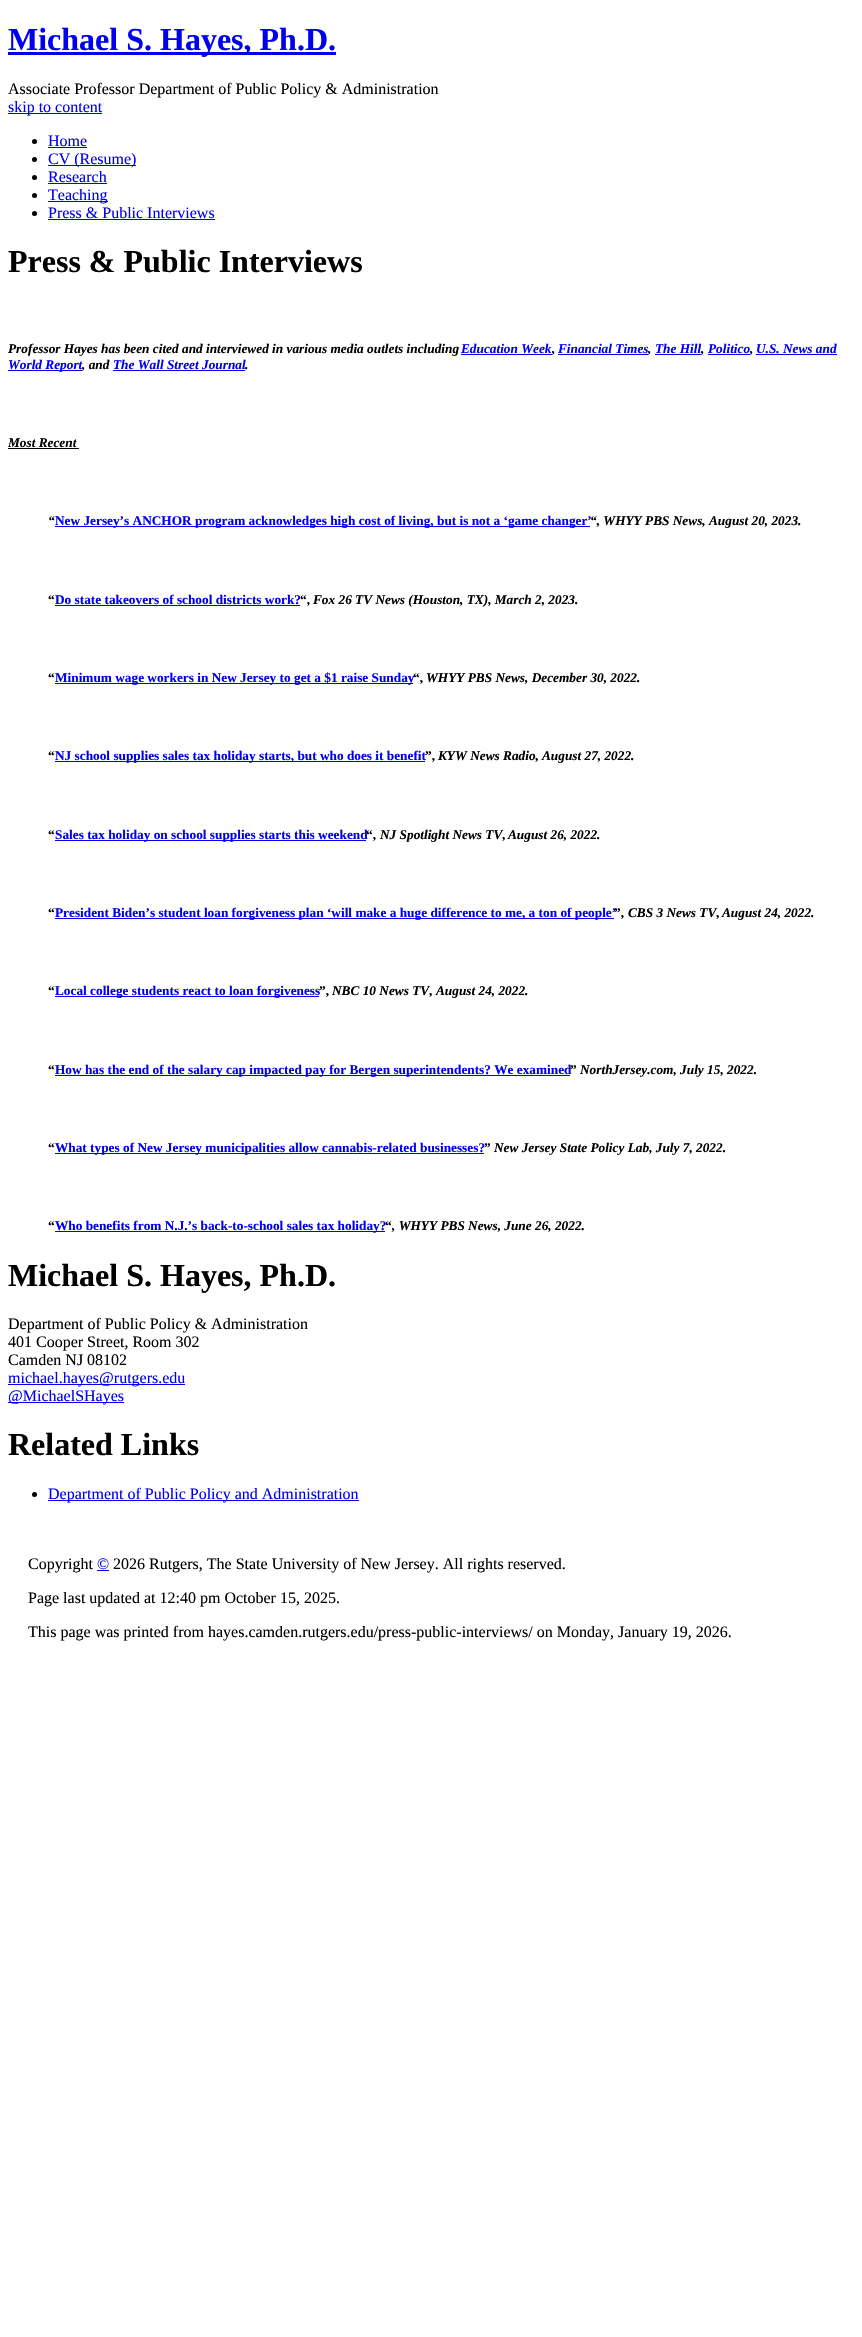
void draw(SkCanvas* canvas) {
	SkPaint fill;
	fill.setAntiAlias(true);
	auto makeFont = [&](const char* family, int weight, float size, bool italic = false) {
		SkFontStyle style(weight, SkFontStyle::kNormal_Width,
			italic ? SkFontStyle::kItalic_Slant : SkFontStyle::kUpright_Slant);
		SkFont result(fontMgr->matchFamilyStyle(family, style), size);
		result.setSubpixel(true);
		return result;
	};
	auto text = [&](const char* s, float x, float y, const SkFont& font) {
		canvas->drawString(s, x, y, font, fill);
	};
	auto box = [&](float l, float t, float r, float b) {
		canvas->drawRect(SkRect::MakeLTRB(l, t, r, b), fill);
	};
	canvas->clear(0xFFFFFFFF);
	fill.setColor(0xFF0000EE);
	box(8, 52, 336, 55);
	box(8, 113, 102, 114);
	fill.setColor(0xFF000000);
	canvas->drawCircle(34.5f, 141.5f, 2.5f, fill);
	fill.setColor(0xFF0000EE);
	box(48, 147, 87, 148);
	fill.setColor(0xFF000000);
	canvas->drawCircle(34.5f, 159.5f, 2.5f, fill);
	fill.setColor(0xFF0000EE);
	box(48, 165, 136, 166);
	fill.setColor(0xFF000000);
	canvas->drawCircle(34.5f, 177.5f, 2.5f, fill);
	fill.setColor(0xFF0000EE);
	box(48, 183, 107, 184);
	fill.setColor(0xFF000000);
	canvas->drawCircle(34.5f, 195.5f, 2.5f, fill);
	fill.setColor(0xFF0000EE);
	box(48, 201, 108, 202);
	fill.setColor(0xFF000000);
	canvas->drawCircle(34.5f, 213.5f, 2.5f, fill);
	fill.setColor(0xFF0000EE);
	box(48, 219, 215, 220);
	box(461, 354, 552, 355);
	box(558, 354, 648, 355);
	box(655, 354, 701, 355);
	box(708, 354, 750, 355);
	box(756, 354, 837, 355);
	box(8, 370, 82, 371);
	box(113, 370, 245, 371);
	fill.setColor(0xFF000000);
	box(8, 448, 79, 449);
	fill.setColor(0xFF0000EE);
	box(55, 526, 590, 527);
	box(55, 605, 300, 606);
	box(55, 683, 413, 684);
	box(55, 761, 425, 762);
	box(55, 840, 366, 841);
	box(55, 918, 614, 919);
	box(55, 996, 319, 997);
	box(55, 1075, 570, 1076);
	box(55, 1153, 484, 1154);
	box(55, 1231, 385, 1232);
	box(8, 1384, 185, 1385);
	box(8, 1402, 124, 1403);
	fill.setColor(0xFF000000);
	canvas->drawCircle(34.5f, 1494.5f, 2.5f, fill);
	fill.setColor(0xFF0000EE);
	box(48, 1500, 359, 1501);
	box(97, 1570, 109, 1571);
	auto font1 = makeFont("Liberation Serif", 700, 32);
	text("Michael S. Hayes, Ph.D.", 8, 50, font1);
	auto font2 = makeFont("Liberation Serif", 400, 16);
	fill.setColor(0xFF000000);
	text("Associate Professor Department of Public Policy & Administration", 8, 94, font2);
	fill.setColor(0xFF0000EE);
	text("skip to content", 8, 112, font2);
	text("Home", 48, 146, font2);
	text("CV (Resume)", 48, 164, font2);
	text("Research", 48, 182, font2);
	text("Teaching", 48, 200, font2);
	text("Press & Public Interviews", 48, 218, font2);
	fill.setColor(0xFF000000);
	text("Press & Public Interviews", 8, 272, font1);
	auto font3 = makeFont("Liberation Serif", 700, 13.3f, true);
	text("Professor Hayes has been cited and interviewed in various media outlets including", 8, 353, font3);
	fill.setColor(0xFF0000EE);
	text("Education Week", 461, 353, font3);
	fill.setColor(0xFF000000);
	text(",", 552, 353, font3);
	fill.setColor(0xFF0000EE);
	text("Financial Times", 558, 353, font3);
	fill.setColor(0xFF000000);
	text(",", 648, 353, font3);
	fill.setColor(0xFF0000EE);
	text("The Hill", 655, 353, font3);
	text("Politico", 708, 353, font3);
	text("U.S. News and", 756, 353, font3);
	fill.setColor(0xFF000000);
	text(",", 701, 353, font3);
	text(",", 750, 353, font3);
	fill.setColor(0xFF0000EE);
	text("World Report", 8, 369, font3);
	fill.setColor(0xFF000000);
	text(", and", 82, 369, font3);
	fill.setColor(0xFF0000EE);
	text("The Wall Street Journal", 113, 369, font3);
	fill.setColor(0xFF000000);
	text(".", 245, 369, font3);
	text("Most Recent", 8, 447, font3);
	text("“", 48, 525, font3);
	auto font4 = makeFont("Liberation Serif", 700, 13.3f);
	fill.setColor(0xFF0000EE);
	text("New Jersey’s ANCHOR program acknowledges high cost of living, but is not a ‘game changer’", 55, 525, font4);
	fill.setColor(0xFF000000);
	text("“, WHYY PBS News, August 20, 2023.", 590, 525, font3);
	text("“", 48, 604, font4);
	fill.setColor(0xFF0000EE);
	text("Do state takeovers of school districts work?", 55, 604, font4);
	fill.setColor(0xFF000000);
	text("“,", 300, 604, font4);
	text("Fox 26 TV News (Houston, TX), March 2, 2023.", 313, 604, font3);
	text("“", 48, 682, font4);
	fill.setColor(0xFF0000EE);
	text("Minimum wage workers in New Jersey to get a $1 raise Sunday", 55, 682, font4);
	fill.setColor(0xFF000000);
	text("“,", 413, 682, font4);
	text("WHYY PBS News, December 30, 2022.", 426, 682, font3);
	text("“", 48, 760, font4);
	fill.setColor(0xFF0000EE);
	text("NJ school supplies sales tax holiday starts, but who does it benefit", 55, 760, font4);
	fill.setColor(0xFF000000);
	text("”,", 425, 760, font4);
	text("KYW News Radio", 438, 760, font3);
	text(",", 535, 760, font4);
	text("August 27, 2022.", 542, 760, font3);
	text("“", 48, 839, font4);
	fill.setColor(0xFF0000EE);
	text("Sales tax holiday on school supplies starts this weekend", 55, 839, font4);
	fill.setColor(0xFF000000);
	text("“,", 366, 839, font4);
	text("NJ Spotlight News TV", 380, 839, font3);
	text("August 26, 2022.", 508, 839, font3);
	text(",", 502, 839, font4);
	text("“", 48, 917, font4);
	fill.setColor(0xFF0000EE);
	text("President Biden’s student loan forgiveness plan ‘will make a huge difference to me, a ton of people’", 55, 917, font4);
	fill.setColor(0xFF000000);
	text("”,", 614, 917, font4);
	text("CBS 3 News TV", 628, 917, font3);
	text("August 24, 2022.", 722, 917, font3);
	text(",", 716, 917, font4);
	text("“", 48, 995, font4);
	fill.setColor(0xFF0000EE);
	text("Local college students react to loan forgiveness", 55, 995, font4);
	fill.setColor(0xFF000000);
	text("”,", 319, 995, font4);
	text("NBC 10 News TV", 332, 995, font3);
	text("August 24, 2022.", 436, 995, font3);
	text(",", 429, 995, font4);
	text("“", 48, 1074, font4);
	fill.setColor(0xFF0000EE);
	text("How has the end of the salary cap impacted pay for Bergen superintendents? We examined", 55, 1074, font4);
	fill.setColor(0xFF000000);
	text("”", 570, 1074, font4);
	text("NorthJersey.com, July 15, 2022.", 580, 1074, font3);
	text("“", 48, 1152, font4);
	fill.setColor(0xFF0000EE);
	text("What types of New Jersey municipalities allow cannabis-related businesses?", 55, 1152, font4);
	fill.setColor(0xFF000000);
	text("”", 484, 1152, font4);
	text("New Jersey State Policy Lab, July 7, 2022.", 494, 1152, font3);
	text("“", 48, 1230, font4);
	fill.setColor(0xFF0000EE);
	text("Who benefits from N.J.’s back-to-school sales tax holiday?", 55, 1230, font4);
	fill.setColor(0xFF000000);
	text("“", 385, 1230, font4);
	text(", WHYY PBS News, June 26, 2022.", 392, 1230, font3);
	text("Michael S. Hayes, Ph.D.", 8, 1286, font1);
	text("Department of Public Policy & Administration", 8, 1329, font2);
	text("401 Cooper Street, Room 302", 8, 1347, font2);
	text("Camden NJ 08102", 8, 1365, font2);
	fill.setColor(0xFF0000EE);
	text("michael.hayes@rutgers.edu", 8, 1383, font2);
	text("@MichaelSHayes", 8, 1401, font2);
	fill.setColor(0xFF000000);
	text("Related Links", 8, 1455, font1);
	fill.setColor(0xFF0000EE);
	text("Department of Public Policy and Administration", 48, 1499, font2);
	fill.setColor(0xFF000000);
	text("Copyright", 28, 1569, font2);
	fill.setColor(0xFF0000EE);
	text("©", 97, 1569, font2);
	fill.setColor(0xFF000000);
	text("2026 Rutgers, The State University of New Jersey. All rights reserved.", 113, 1569, font2);
	text("Page last updated at 12:40 pm October 15, 2025.", 28, 1603, font2);
	text("This page was printed from hayes.camden.rutgers.edu/press-public-interviews/ on Monday, January 19, 2026.", 28, 1637, font2);
}
